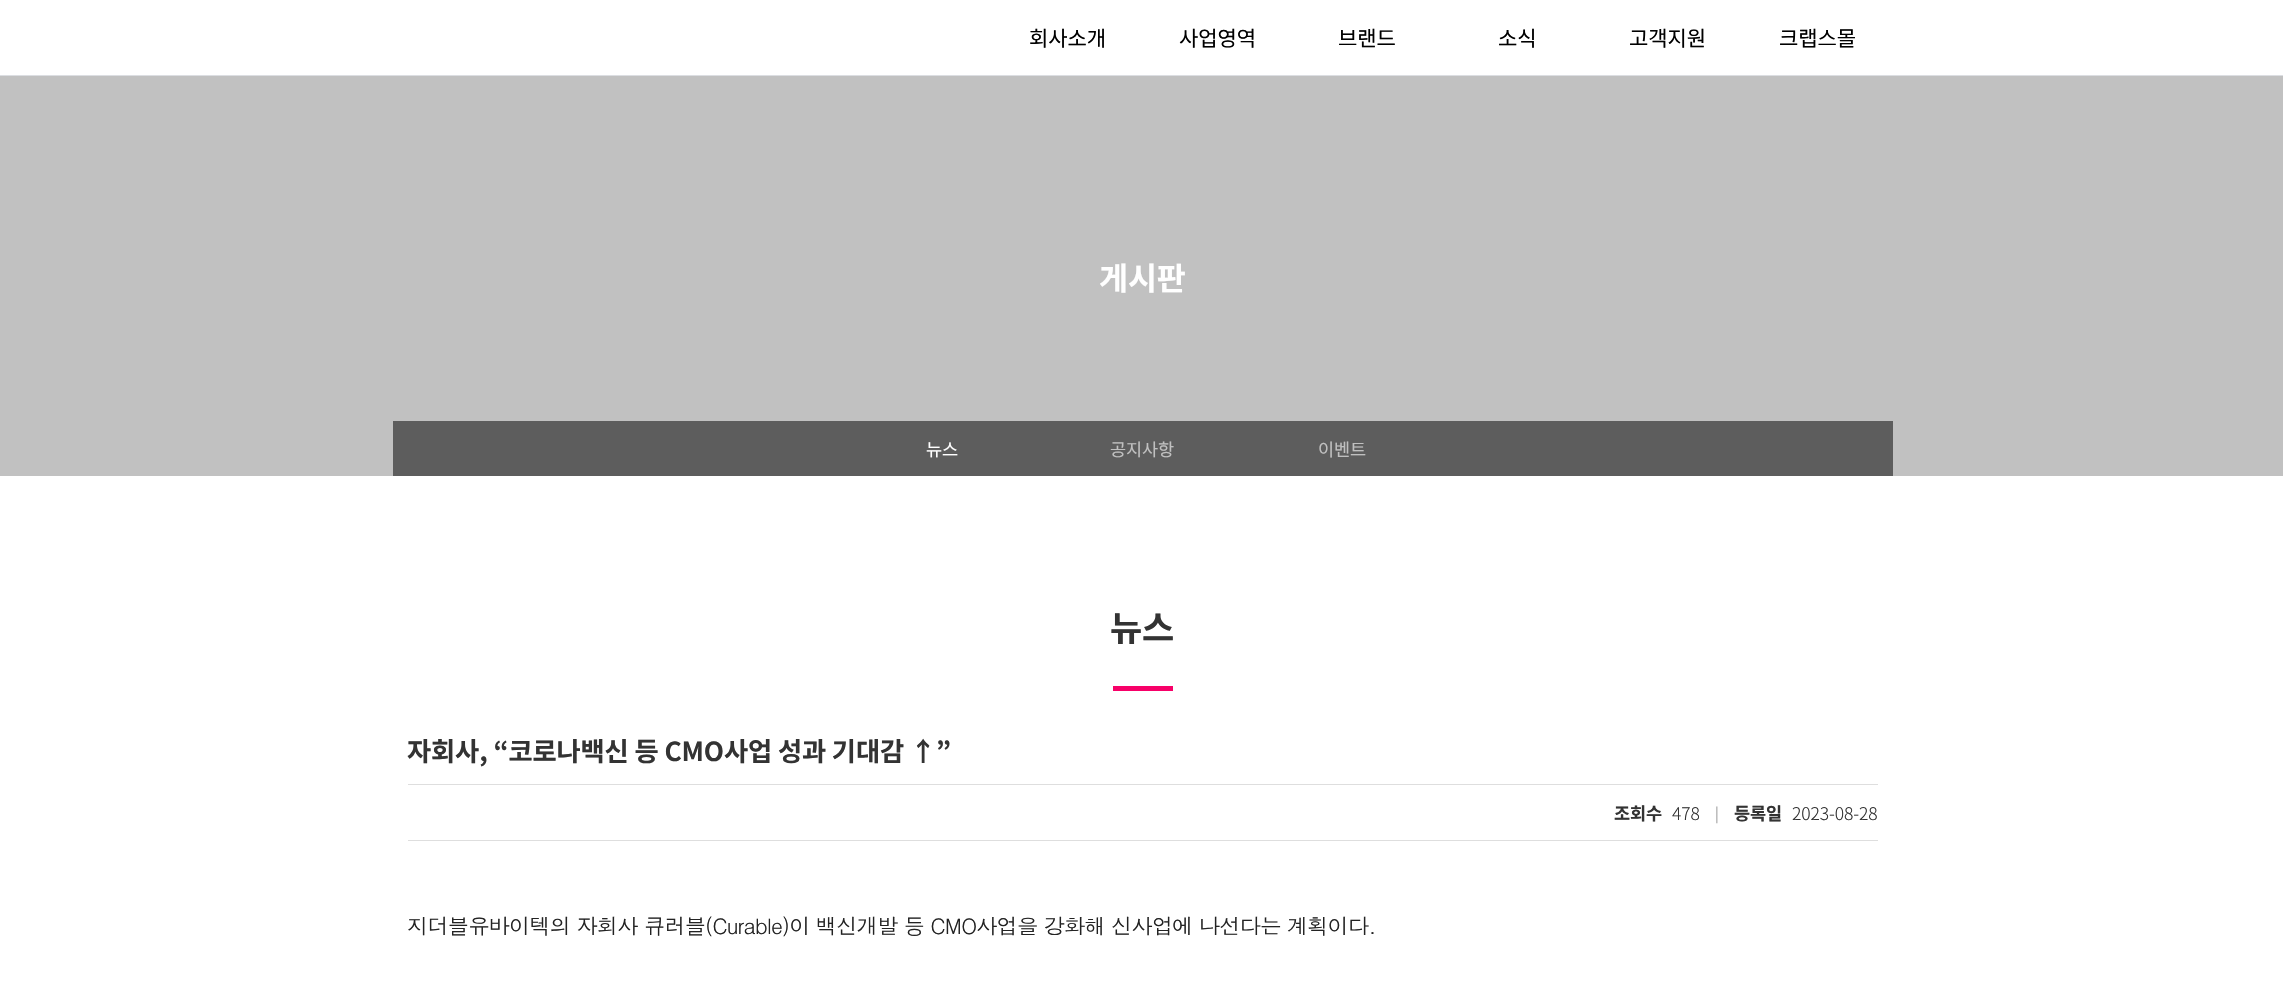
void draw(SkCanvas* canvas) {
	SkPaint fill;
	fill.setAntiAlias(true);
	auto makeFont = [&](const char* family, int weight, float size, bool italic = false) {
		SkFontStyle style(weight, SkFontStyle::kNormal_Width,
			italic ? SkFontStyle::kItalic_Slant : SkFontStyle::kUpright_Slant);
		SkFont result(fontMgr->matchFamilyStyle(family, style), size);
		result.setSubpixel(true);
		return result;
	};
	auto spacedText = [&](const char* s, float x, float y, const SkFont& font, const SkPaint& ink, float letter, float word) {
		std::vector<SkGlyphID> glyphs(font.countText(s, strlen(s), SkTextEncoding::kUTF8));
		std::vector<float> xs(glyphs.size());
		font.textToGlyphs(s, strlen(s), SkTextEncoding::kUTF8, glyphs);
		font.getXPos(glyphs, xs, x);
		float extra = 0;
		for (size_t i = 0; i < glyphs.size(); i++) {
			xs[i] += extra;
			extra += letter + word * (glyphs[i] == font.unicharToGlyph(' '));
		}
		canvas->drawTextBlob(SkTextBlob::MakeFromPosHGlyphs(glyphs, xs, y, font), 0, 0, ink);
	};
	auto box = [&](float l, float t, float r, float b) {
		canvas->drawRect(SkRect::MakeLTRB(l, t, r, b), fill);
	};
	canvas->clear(0xFFFFFFFF);
	fill.setColor(0xFFDCDEE2);
	box(0, 75, 2283, 76);
	fill.setColor(0xFFC1C1C1);
	box(0, 76, 2283, 476);
	fill.setColor(0xFF5D5D5D);
	box(393, 421, 1893, 476);
	fill.setColor(0xFFF70068);
	box(1113, 686, 1173, 691);
	fill.setColor(0xFFDEDEDE);
	box(408, 784, 1878, 785);
	box(408, 840, 1878, 841);
	auto font1 = makeFont("Noto Sans KR", 400, 21);
	fill.setColor(0xFF000000);
	spacedText("회사소개", 1029, 46, font1, fill, -0.1f, 0);
	spacedText("사업영역", 1179, 46, font1, fill, -0.1f, 0);
	spacedText("브랜드", 1338, 46, font1, fill, -0.1f, 0);
	spacedText("소식", 1498, 46, font1, fill, -0.1f, 0);
	spacedText("고객지원", 1629, 46, font1, fill, -0.1f, 0);
	spacedText("크랩스몰", 1779, 46, font1, fill, -0.1f, 0);
	auto font2 = makeFont("Noto Sans KR", 700, 31.5f);
	fill.setColor(0xFFFFFFFF);
	spacedText("게시판", 1099, 290, font2, fill, -0.1f, 0);
	auto font3 = makeFont("Noto Sans KR", 400, 17.5f);
	spacedText("뉴스", 926, 456, font3, fill, -0.1f, 0);
	fill.setColor(0xFFC0C0C0);
	spacedText("공지사항", 1110, 456, font3, fill, -0.1f, 0);
	spacedText("이벤트", 1318, 456, font3, fill, -0.1f, 0);
	auto font4 = makeFont("Noto Sans KR", 700, 35);
	fill.setColor(0xFF333333);
	spacedText("뉴스", 1110, 641, font4, fill, -0.1f, 0);
	auto font5 = makeFont("Noto Sans KR", 700, 26.25f);
	spacedText("자회사, “코로나백신 등 CMO사업 성과 기대감 ↑”", 407, 761, font5, fill, -0.1f, 0);
	auto font6 = makeFont("Noto Sans KR", 700, 17.5f);
	spacedText("조회수", 1614, 820, font6, fill, -0.1f, 0);
	auto font7 = makeFont("Noto Sans KR", 300, 17.5f);
	spacedText("478", 1672, 820, font7, fill, -0.1f, 0);
	auto font8 = makeFont("Noto Sans KR", 300, 15);
	fill.setColor(0xFF808080);
	spacedText("|", 1715, 819, font8, fill, -0.1f, 0);
	fill.setColor(0xFF333333);
	spacedText("등록일", 1734, 820, font6, fill, -0.1f, 0);
	spacedText("2023-08-28", 1792, 820, font7, fill, -0.1f, 0);
	auto font9 = makeFont("Dotum", 400, 21.25f);
	fill.setColor(0xFF232323);
	spacedText("지더블유바이텍의 자회사 큐러블(Curable)이 백신개발 등 CMO사업을 강화해 신사업에 나선다는 계획이다.", 407, 934, font9, fill, -0.85f, 0);
}
